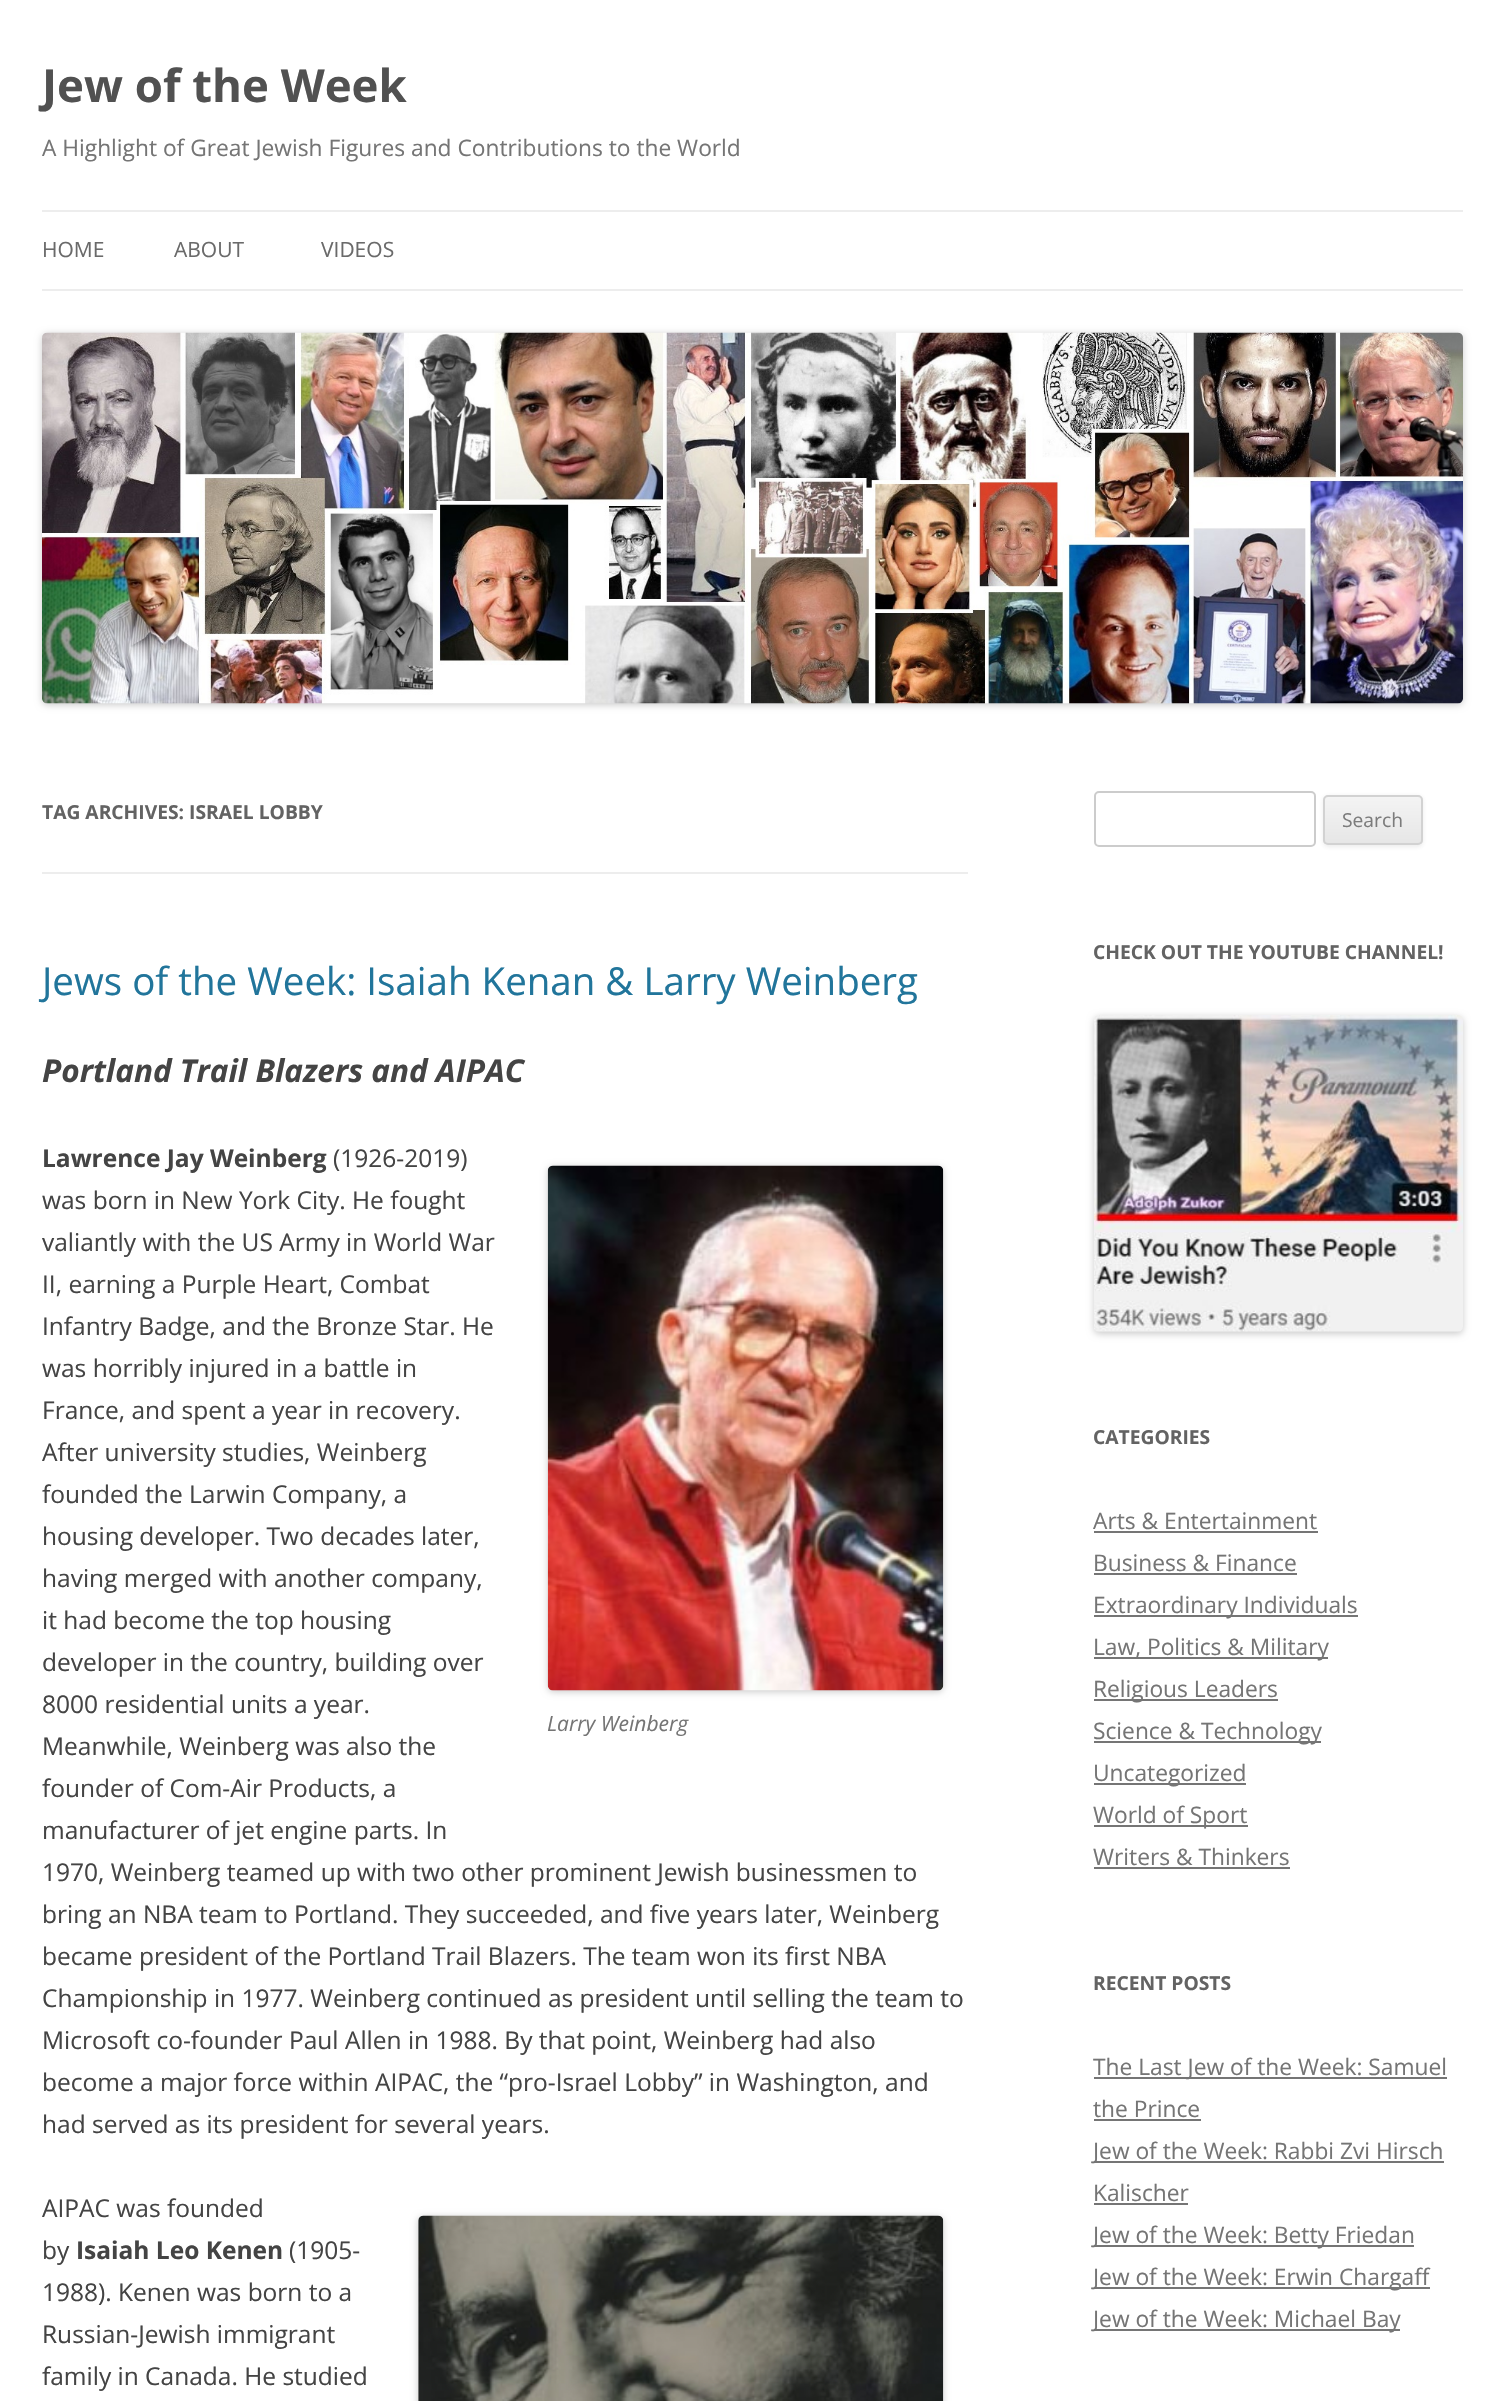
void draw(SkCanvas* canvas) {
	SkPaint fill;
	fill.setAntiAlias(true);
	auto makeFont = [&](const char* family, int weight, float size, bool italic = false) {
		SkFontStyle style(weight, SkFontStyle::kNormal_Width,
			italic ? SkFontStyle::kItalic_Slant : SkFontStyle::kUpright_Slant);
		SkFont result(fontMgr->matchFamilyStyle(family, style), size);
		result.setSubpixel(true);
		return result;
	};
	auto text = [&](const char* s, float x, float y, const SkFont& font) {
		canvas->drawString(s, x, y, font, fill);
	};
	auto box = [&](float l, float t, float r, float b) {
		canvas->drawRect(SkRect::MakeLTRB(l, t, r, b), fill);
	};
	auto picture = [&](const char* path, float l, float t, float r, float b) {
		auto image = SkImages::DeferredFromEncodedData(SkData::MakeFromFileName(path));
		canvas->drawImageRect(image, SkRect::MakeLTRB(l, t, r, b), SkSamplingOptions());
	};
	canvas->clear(0xFFFFFFFF);
	fill.setColor(0xFFEDEDED);
	box(42, 210, 1463, 212);
	box(42, 289, 1463, 291);
	fill.setColor(0x33000000);
	fill.setMaskFilter(SkMaskFilter::MakeBlur(kNormal_SkBlurStyle, 3.5f));
	canvas->drawRoundRect(SkRect::MakeLTRB(42, 334, 1463, 705), 5, 5, fill);
	fill.setMaskFilter(nullptr);
	picture("image0.png", 42, 332, 1463, 704);
	fill.setColor(0xFFEDEDED);
	box(42, 872, 968, 874);
	fill.setColor(0x33000000);
	fill.setMaskFilter(SkMaskFilter::MakeBlur(kNormal_SkBlurStyle, 3.5f));
	canvas->drawRoundRect(SkRect::MakeLTRB(548, 1167, 943, 1692), 5, 5, fill);
	fill.setMaskFilter(nullptr);
	picture("image1.png", 547, 1165, 944, 1691);
	fill.setMaskFilter(SkMaskFilter::MakeBlur(kNormal_SkBlurStyle, 3.5f));
	canvas->drawRoundRect(SkRect::MakeLTRB(418, 2217, 943, 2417), 5, 5, fill);
	fill.setMaskFilter(nullptr);
	picture("image2.png", 418, 2215, 944, 2401);
	fill.setStyle(SkPaint::kStroke_Style);
	fill.setStrokeWidth(2);
	fill.setColor(0xFFCCCCCC);
	canvas->drawRoundRect(SkRect::MakeLTRB(1095, 792, 1315, 846), 4, 4, fill);
	fill.setStyle(SkPaint::kFill_Style);
	fill.setColor(0x1A404040);
	fill.setMaskFilter(SkMaskFilter::MakeBlur(kNormal_SkBlurStyle, 2));
	canvas->drawRoundRect(SkRect::MakeLTRB(1323, 796, 1423, 847), 5, 5, fill);
	fill.setMaskFilter(nullptr);
	canvas->save();
	canvas->clipPath(SkPathBuilder().moveTo(1328, 795).lineTo(1418, 795).cubicTo(1421, 795, 1423, 797, 1423, 800).lineTo(1423, 840).cubicTo(1423, 843, 1421, 845, 1418, 845).lineTo(1328, 845).cubicTo(1325, 845, 1323, 843, 1323, 840).lineTo(1323, 800).cubicTo(1323, 797, 1325, 795, 1328, 795).close().detach(), true);
	{
		const SkColor colors[] = {0xFFF4F4F4, 0xFFE6E6E6};
		const float stops[] = {0, 1};
		const SkPoint ends[] = {{1373, 796}, {1373, 844}};
		fill.setShader(SkGradientShader::MakeLinear(ends, colors, stops, 2, SkTileMode::kClamp));
		fill.setAlpha(255);
	}
	box(1323, 796, 1423, 844);
	canvas->restore();
	fill.setStyle(SkPaint::kStroke_Style);
	fill.setShader(nullptr);
	fill.setColor(0xFFD2D2D2);
	canvas->drawRoundRect(SkRect::MakeLTRB(1324, 796, 1422, 844), 4, 4, fill);
	fill.setStyle(SkPaint::kFill_Style);
	fill.setColor(0x33000000);
	fill.setMaskFilter(SkMaskFilter::MakeBlur(kNormal_SkBlurStyle, 3.5f));
	canvas->drawRoundRect(SkRect::MakeLTRB(1094, 1017, 1463, 1334), 5, 5, fill);
	fill.setMaskFilter(nullptr);
	picture("image3.png", 1094, 1015, 1463, 1332);
	fill.setColor(0xFF757575);
	box(1094, 1531, 1318, 1533);
	box(1094, 1573, 1297, 1575);
	box(1094, 1615, 1358, 1617);
	box(1094, 1657, 1328, 1659);
	box(1094, 1699, 1278, 1701);
	box(1094, 1741, 1321, 1743);
	box(1094, 1783, 1246, 1785);
	box(1094, 1825, 1248, 1827);
	box(1094, 1867, 1290, 1869);
	box(1094, 2077, 1447, 2079);
	box(1094, 2119, 1201, 2121);
	box(1094, 2161, 1444, 2163);
	box(1094, 2203, 1188, 2205);
	box(1094, 2245, 1414, 2247);
	box(1094, 2287, 1430, 2289);
	box(1094, 2329, 1400, 2331);
	auto font1 = makeFont("Open Sans", 700, 45.5f);
	fill.setColor(0xFF515151);
	text("Jew of the Week", 42, 102, font1);
	auto font2 = makeFont("Open Sans", 400, 22.75f);
	fill.setColor(0xFF757575);
	text("A Highlight of Great Jewish Figures and Contributions to the World", 42, 156, font2);
	auto font3 = makeFont("Open Sans", 400, 21);
	fill.setColor(0xFF6A6A6A);
	text("HOME", 42, 257, font3);
	text("ABOUT", 174, 257, font3);
	text("VIDEOS", 321, 257, font3);
	auto font4 = makeFont("Open Sans", 700, 19.25f);
	fill.setColor(0xFF636363);
	text("TAG ARCHIVES: ISRAEL LOBBY", 42, 819, font4);
	auto font5 = makeFont("Open Sans", 400, 38.5f);
	fill.setColor(0xFF21759B);
	text("Jews of the Week: Isaiah Kenan & Larry Weinberg", 42, 995, font5);
	auto font6 = makeFont("Open Sans", 700, 31.5f, true);
	fill.setColor(0xFF444444);
	text("Portland Trail Blazers and AIPAC", 42, 1082, font6);
	auto font7 = makeFont("Open Sans", 700, 24.5f);
	text("Lawrence Jay Weinberg", 42, 1167, font7);
	auto font8 = makeFont("Open Sans", 400, 24.5f);
	text("(1926-2019)", 333, 1167, font8);
	text("was born in New York City. He fought", 42, 1209, font8);
	text("valiantly with the US Army in World War", 42, 1251, font8);
	text("II, earning a Purple Heart, Combat", 42, 1293, font8);
	text("Infantry Badge, and the Bronze Star. He", 42, 1335, font8);
	text("was horribly injured in a battle in", 42, 1377, font8);
	text("France, and spent a year in recovery.", 42, 1419, font8);
	text("After university studies, Weinberg", 42, 1461, font8);
	text("founded the Larwin Company, a", 42, 1503, font8);
	text("housing developer. Two decades later,", 42, 1545, font8);
	text("having merged with another company,", 42, 1587, font8);
	text("it had become the top housing", 42, 1629, font8);
	text("developer in the country, building over", 42, 1671, font8);
	text("8000 residential units a year.", 42, 1713, font8);
	text("Meanwhile, Weinberg was also the", 42, 1755, font8);
	text("founder of Com-Air Products, a", 42, 1797, font8);
	text("manufacturer of jet engine parts. In", 42, 1839, font8);
	text("1970, Weinberg teamed up with two other prominent Jewish businessmen to", 42, 1881, font8);
	text("bring an NBA team to Portland. They succeeded, and five years later, Weinberg", 42, 1923, font8);
	text("became president of the Portland Trail Blazers. The team won its first NBA", 42, 1965, font8);
	text("Championship in 1977. Weinberg continued as president until selling the team to", 42, 2007, font8);
	text("Microsoft co-founder Paul Allen in 1988. By that point, Weinberg had also", 42, 2049, font8);
	text("become a major force within AIPAC, the “pro-Israel Lobby” in Washington, and", 42, 2091, font8);
	text("had served as its president for several years.", 42, 2133, font8);
	auto font9 = makeFont("Open Sans", 400, 21, true);
	fill.setColor(0xFF757575);
	text("Larry Weinberg", 547, 1731, font9);
	fill.setColor(0xFF444444);
	text("AIPAC was founded", 42, 2217, font8);
	text("by", 42, 2259, font8);
	text("Isaiah Leo Kenen", 76, 2259, font7);
	text("(1905-", 289, 2259, font8);
	text("1988). Kenen was born to a", 42, 2301, font8);
	text("Russian-Jewish immigrant", 42, 2343, font8);
	text("family in Canada. He studied", 42, 2385, font8);
	auto font10 = makeFont("Open Sans", 400, 19.25f);
	fill.setColor(0xFF7C7C7C);
	text("Search", 1342, 827, font10);
	fill.setColor(0xFF636363);
	text("CHECK OUT THE YOUTUBE CHANNEL!", 1093, 959, font4);
	text("CATEGORIES", 1093, 1444, font4);
	fill.setColor(0xFF757575);
	text("Arts & Entertainment", 1093, 1529, font2);
	text("Business & Finance", 1093, 1571, font2);
	text("Extraordinary Individuals", 1093, 1613, font2);
	text("Law, Politics & Military", 1093, 1655, font2);
	text("Religious Leaders", 1093, 1697, font2);
	text("Science & Technology", 1093, 1739, font2);
	text("Uncategorized", 1093, 1781, font2);
	text("World of Sport", 1093, 1823, font2);
	text("Writers & Thinkers", 1093, 1865, font2);
	fill.setColor(0xFF636363);
	text("RECENT POSTS", 1093, 1990, font4);
	fill.setColor(0xFF757575);
	text("The Last Jew of the Week: Samuel", 1093, 2075, font2);
	text("the Prince", 1093, 2117, font2);
	text("Jew of the Week: Rabbi Zvi Hirsch", 1093, 2159, font2);
	text("Kalischer", 1093, 2201, font2);
	text("Jew of the Week: Betty Friedan", 1093, 2243, font2);
	text("Jew of the Week: Erwin Chargaff", 1093, 2285, font2);
	text("Jew of the Week: Michael Bay", 1093, 2327, font2);
}
